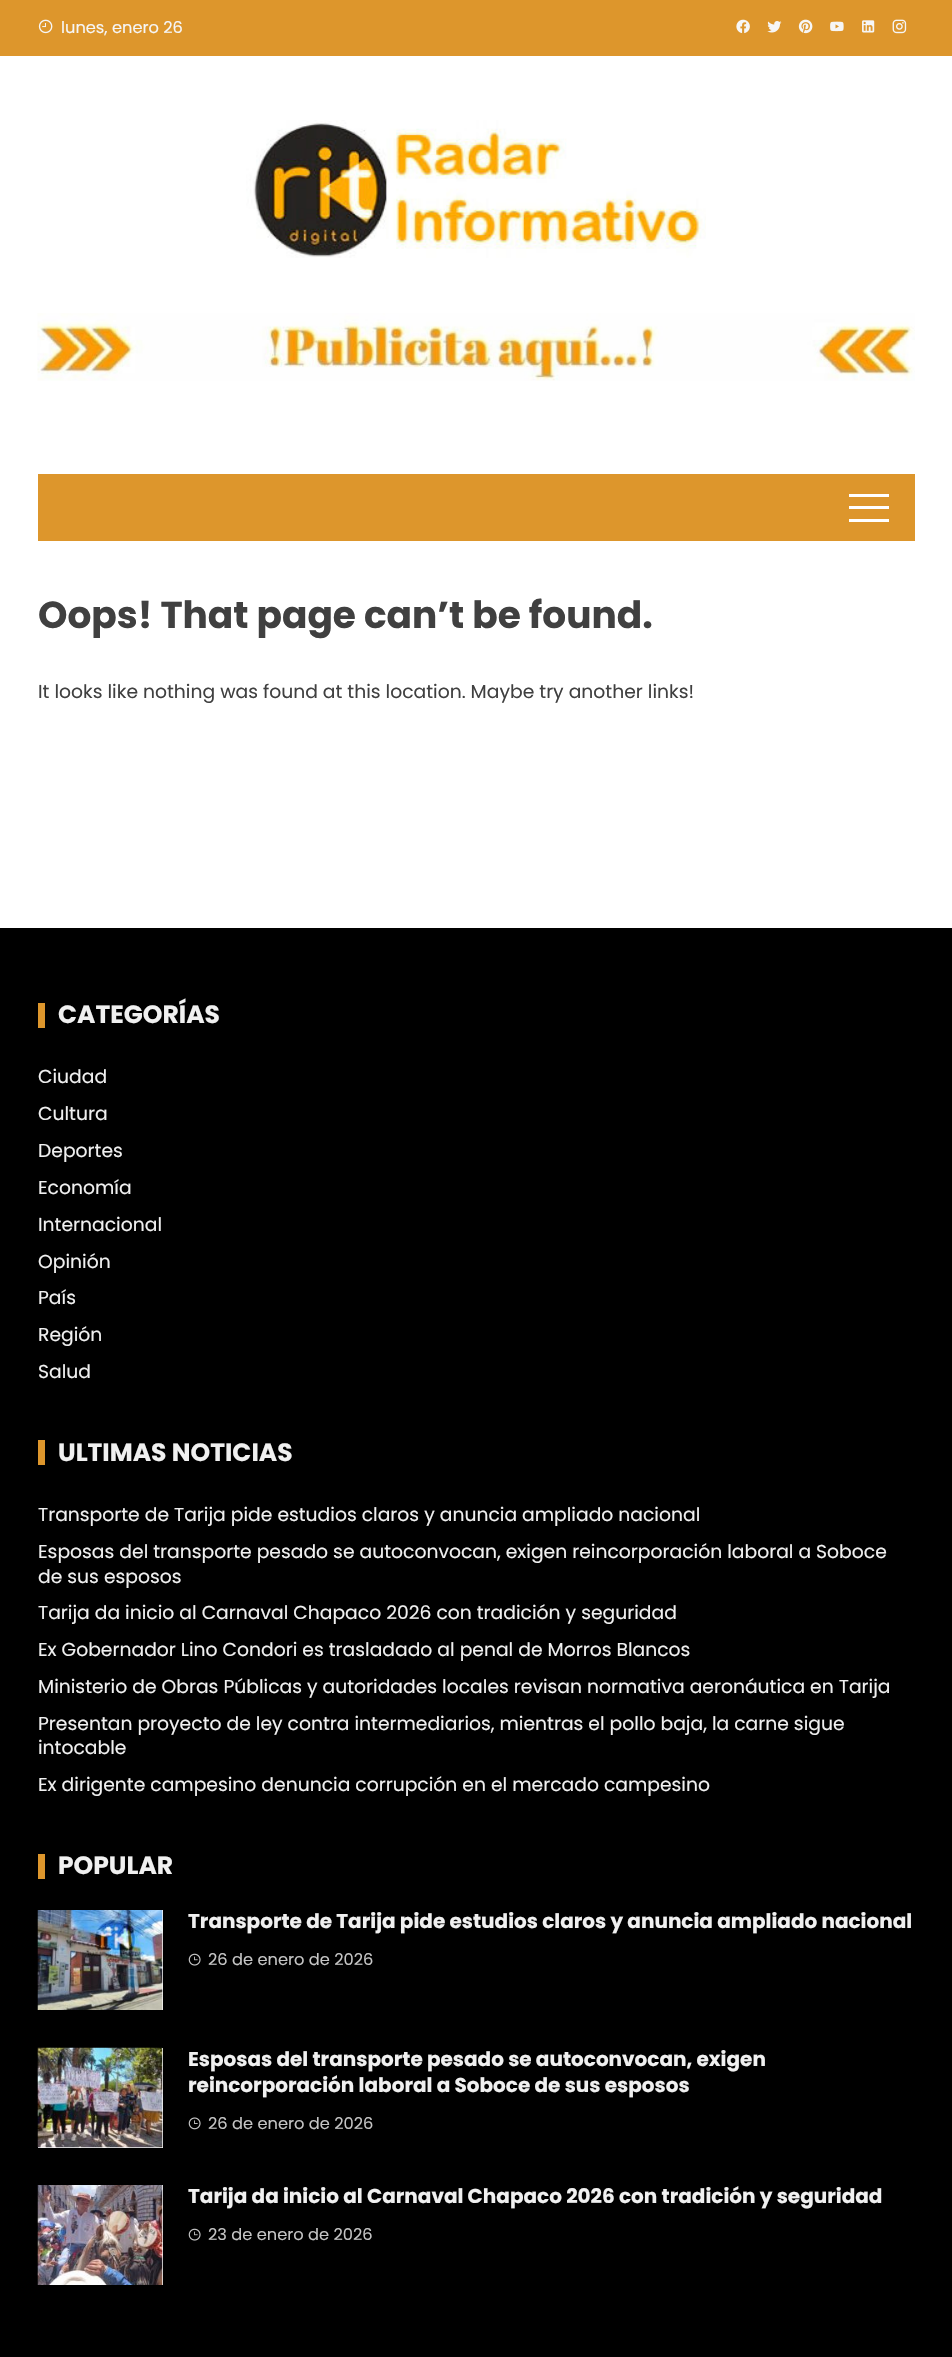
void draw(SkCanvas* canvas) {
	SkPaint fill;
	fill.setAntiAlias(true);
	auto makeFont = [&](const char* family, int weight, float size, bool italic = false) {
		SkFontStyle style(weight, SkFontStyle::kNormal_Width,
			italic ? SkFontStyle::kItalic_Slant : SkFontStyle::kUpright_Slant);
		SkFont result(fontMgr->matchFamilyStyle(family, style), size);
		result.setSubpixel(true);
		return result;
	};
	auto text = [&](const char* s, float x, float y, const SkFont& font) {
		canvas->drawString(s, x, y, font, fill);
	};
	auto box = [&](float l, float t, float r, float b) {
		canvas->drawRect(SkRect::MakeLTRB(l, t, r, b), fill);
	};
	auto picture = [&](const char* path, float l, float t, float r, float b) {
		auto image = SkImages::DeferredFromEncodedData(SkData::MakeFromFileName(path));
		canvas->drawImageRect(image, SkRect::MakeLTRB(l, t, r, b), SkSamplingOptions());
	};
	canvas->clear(0xFFFFFFFF);
	fill.setColor(0xFFDD962C);
	box(0, 0, 952, 56);
	picture("image0.png", 38, 19, 53, 34);
	picture("image1.png", 736, 19, 750, 34);
	picture("image2.png", 767, 21, 782, 33);
	picture("image3.png", 798, 19, 813, 34);
	picture("image4.png", 830, 21, 844, 32);
	picture("image5.png", 862, 20, 875, 33);
	picture("image6.png", 892, 19, 907, 34);
	picture("image7.png", 246, 120, 706, 258);
	picture("image8.png", 37, 313, 915, 381);
	box(38, 474, 915, 541);
	fill.setColor(0xFFFFFFFF);
	box(849, 494, 889, 497);
	box(849, 519, 889, 522);
	box(849, 506, 889, 509);
	fill.setColor(0xFF000000);
	box(0, 928, 952, 2357);
	fill.setColor(0xFFDD962C);
	box(38, 1003, 45, 1028);
	box(38, 1440, 45, 1465);
	box(38, 1854, 45, 1879);
	fill.setColor(0xFFF7F7F7);
	box(162, 1910, 163, 2010);
	picture("image9.png", 37, 1910, 163, 2010);
	picture("image10.png", 188, 1953, 201, 1966);
	box(38, 2048, 163, 2148);
	picture("image11.png", 37, 2047, 163, 2148);
	picture("image12.png", 188, 2117, 201, 2130);
	box(162, 2185, 163, 2285);
	picture("image13.png", 37, 2185, 163, 2285);
	picture("image10.png", 188, 2228, 201, 2241);
	auto font1 = makeFont("Poppins", 400, 16.25f);
	fill.setColor(0xFFF6F6F6);
	text("lunes, enero 26", 61, 33, font1);
	auto font2 = makeFont("Poppins", 700, 37.5f);
	fill.setColor(0xFF404040);
	text("Oops! That page can’t be found.", 38, 628, font2);
	auto font3 = makeFont("Poppins", 400, 18.75f);
	text("It looks like nothing was found at this location. Maybe try another links!", 38, 698, font3);
	auto font4 = makeFont("Poppins", 700, 25);
	fill.setColor(0xFFF0F0F0);
	text("CATEGORÍAS", 58, 1023, font4);
	text("Ciudad", 38, 1083, font3);
	text("Cultura", 38, 1120, font3);
	text("Deportes", 38, 1157, font3);
	text("Economía", 38, 1194, font3);
	text("Internacional", 38, 1231, font3);
	text("Opinión", 38, 1268, font3);
	text("País", 38, 1304, font3);
	text("Región", 38, 1341, font3);
	text("Salud", 38, 1378, font3);
	text("ULTIMAS NOTICIAS", 58, 1461, font4);
	text("Transporte de Tarija pide estudios claros y anuncia ampliado nacional", 38, 1521, font3);
	text("Esposas del transporte pesado se autoconvocan, exigen reincorporación laboral a Soboce", 38, 1558, font3);
	text("de sus esposos", 38, 1583, font3);
	text("Tarija da inicio al Carnaval Chapaco 2026 con tradición y seguridad", 38, 1619, font3);
	text("Ex Gobernador Lino Condori es trasladado al penal de Morros Blancos", 38, 1656, font3);
	text("Ministerio de Obras Públicas y autoridades locales revisan normativa aeronáutica en Tarija", 38, 1693, font3);
	text("Presentan proyecto de ley contra intermediarios, mientras el pollo baja, la carne sigue", 38, 1730, font3);
	text("intocable", 38, 1754, font3);
	text("Ex dirigente campesino denuncia corrupción en el mercado campesino", 38, 1791, font3);
	text("POPULAR", 58, 1874, font4);
	auto font5 = makeFont("Poppins", 700, 20);
	text("Transporte de Tarija pide estudios claros y anuncia ampliado nacional", 188, 1928, font5);
	fill.setColor(0xFFC5C5C5);
	text("26 de enero de 2026", 208, 1965, font1);
	fill.setColor(0xFFF0F0F0);
	text("Esposas del transporte pesado se autoconvocan, exigen", 188, 2066, font5);
	text("reincorporación laboral a Soboce de sus esposos", 188, 2092, font5);
	fill.setColor(0xFFC5C5C5);
	text("26 de enero de 2026", 208, 2129, font1);
	fill.setColor(0xFFF0F0F0);
	text("Tarija da inicio al Carnaval Chapaco 2026 con tradición y seguridad", 188, 2203, font5);
	fill.setColor(0xFFC5C5C5);
	text("23 de enero de 2026", 208, 2240, font1);
}
